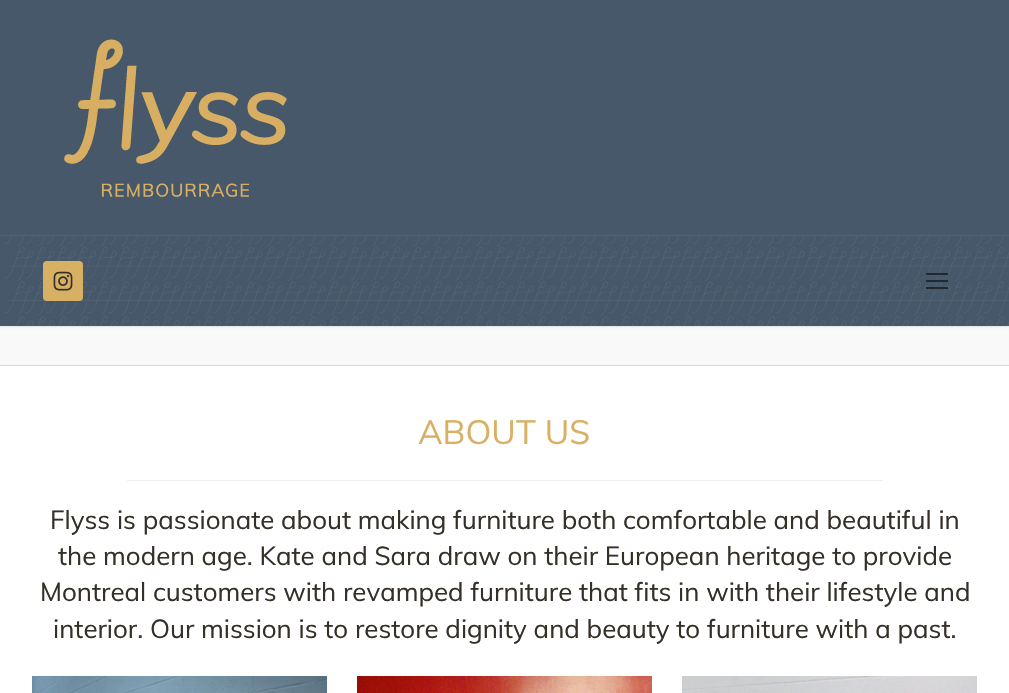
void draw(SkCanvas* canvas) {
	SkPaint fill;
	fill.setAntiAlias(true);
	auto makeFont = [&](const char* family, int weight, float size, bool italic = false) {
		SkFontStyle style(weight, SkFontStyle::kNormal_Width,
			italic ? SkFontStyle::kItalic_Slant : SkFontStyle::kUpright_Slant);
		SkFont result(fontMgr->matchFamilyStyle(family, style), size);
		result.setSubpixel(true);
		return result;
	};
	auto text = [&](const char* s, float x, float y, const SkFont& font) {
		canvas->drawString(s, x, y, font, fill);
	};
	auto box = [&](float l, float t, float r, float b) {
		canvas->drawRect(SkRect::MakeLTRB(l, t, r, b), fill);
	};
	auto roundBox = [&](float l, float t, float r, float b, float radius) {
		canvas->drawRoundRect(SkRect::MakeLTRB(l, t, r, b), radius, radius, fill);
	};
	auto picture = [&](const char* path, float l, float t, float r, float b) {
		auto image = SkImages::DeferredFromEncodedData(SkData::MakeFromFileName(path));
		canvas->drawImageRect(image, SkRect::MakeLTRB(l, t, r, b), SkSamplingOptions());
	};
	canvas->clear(0xFFFFFFFF);
	fill.setColor(0xFF46586A);
	box(0, 0, 1009, 236);
	picture("image0.png", 64, 39, 287, 197);
	fill.setColor(0xFFF9F9F9);
	box(0, 326, 1009, 365);
	fill.setColor(0xFFE1E5EA);
	fill.setMaskFilter(SkMaskFilter::MakeBlur(kNormal_SkBlurStyle, 1));
	canvas->drawRect(SkRect::MakeLTRB(0, 237, 1009, 327), fill);
	fill.setMaskFilter(nullptr);
	fill.setColor(0xFF46586A);
	box(0, 236, 4, 326);
	picture("image1.png", 4, 236, 1009, 326);
	fill.setColor(0xFFD8B063);
	roundBox(43, 261, 83, 301, 4);
	picture("image2.png", 53, 271, 73, 291);
	fill.setColor(0x8C000000);
	box(926, 280, 948, 282);
	box(926, 273, 948, 275);
	box(926, 287, 948, 289);
	fill.setColor(0xFFD9D9D4);
	box(0, 365, 1009, 366);
	fill.setColor(0xFFEEEEEE);
	box(127, 480, 883, 481);
	picture("image3.png", 32, 676, 327, 693);
	picture("image4.png", 357, 676, 652, 693);
	picture("image5.png", 682, 676, 977, 693);
	auto font1 = makeFont("Muli", 400, 33.5f);
	fill.setColor(0xFFD8B063);
	text("ABOUT US", 418, 444, font1);
	auto font2 = makeFont("Muli", 400, 25.9f);
	fill.setColor(0xFF343028);
	text("Flyss is passionate about making furniture both comfortable and beautiful in", 50, 529, font2);
	text("the modern age. Kate and Sara draw on their European heritage to provide", 58, 565, font2);
	text("Montreal customers with revamped furniture that fits in with their lifestyle and", 40, 601, font2);
	text("interior. Our mission is to restore dignity and beauty to furniture with a past.", 53, 638, font2);
}
